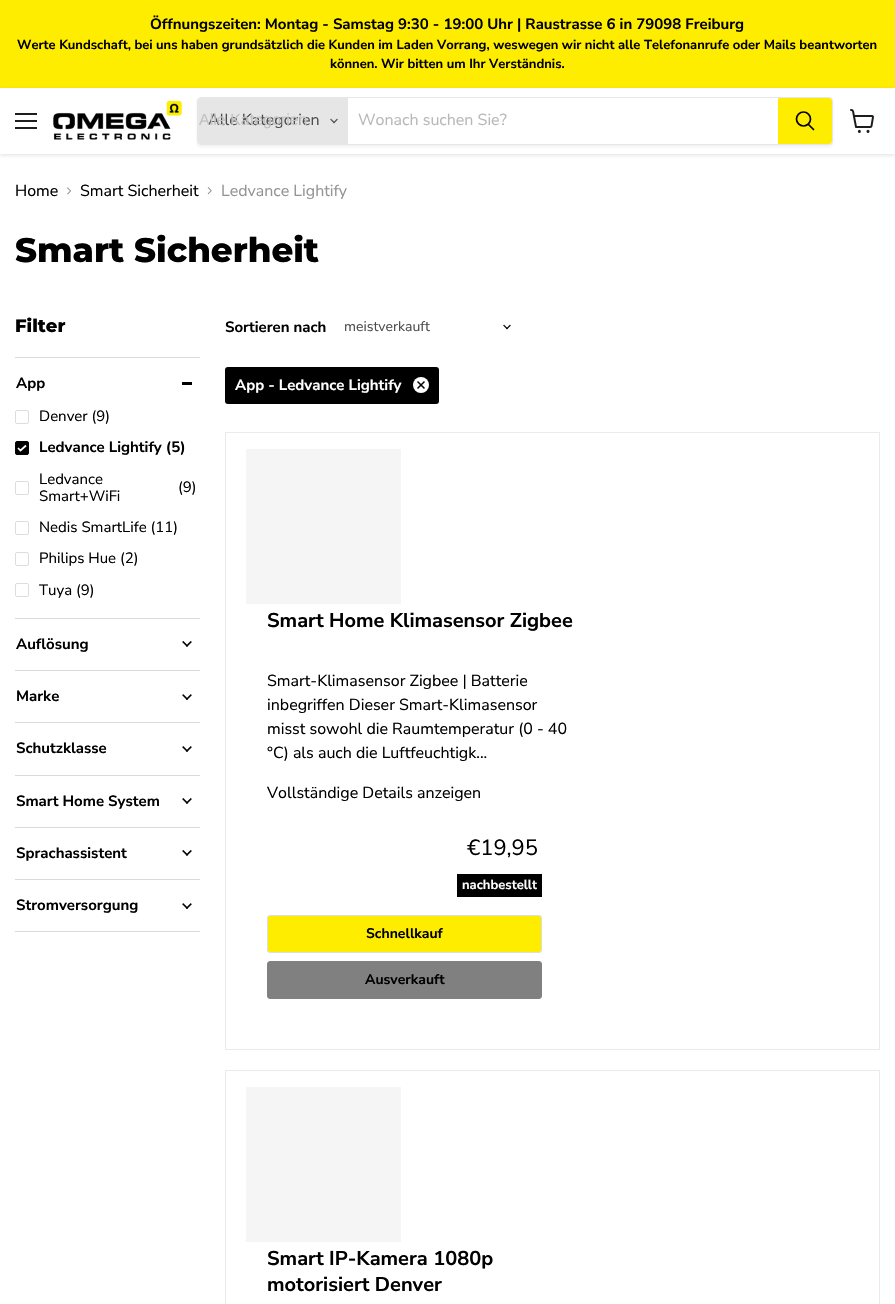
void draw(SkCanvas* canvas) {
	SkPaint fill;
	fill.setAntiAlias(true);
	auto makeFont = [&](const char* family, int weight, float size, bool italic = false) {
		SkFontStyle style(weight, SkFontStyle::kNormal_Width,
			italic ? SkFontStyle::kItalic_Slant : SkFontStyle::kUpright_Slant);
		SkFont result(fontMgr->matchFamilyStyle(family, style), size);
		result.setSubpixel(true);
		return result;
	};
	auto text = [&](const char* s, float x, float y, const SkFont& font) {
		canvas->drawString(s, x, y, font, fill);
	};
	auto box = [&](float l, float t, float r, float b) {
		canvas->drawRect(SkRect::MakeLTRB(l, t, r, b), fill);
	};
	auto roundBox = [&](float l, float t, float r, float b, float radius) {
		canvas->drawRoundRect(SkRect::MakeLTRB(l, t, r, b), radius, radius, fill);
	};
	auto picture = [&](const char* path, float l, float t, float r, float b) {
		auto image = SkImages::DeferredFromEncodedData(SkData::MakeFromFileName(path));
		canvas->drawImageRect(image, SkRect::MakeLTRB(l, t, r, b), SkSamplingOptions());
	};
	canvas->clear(0xFFFFFFFF);
	fill.setColor(0xFFFFED00);
	box(0, 0, 895, 88);
	fill.setColor(0x40808080);
	fill.setMaskFilter(SkMaskFilter::MakeBlur(kNormal_SkBlurStyle, 2));
	canvas->drawRect(SkRect::MakeLTRB(0, 89, 895, 155), fill);
	fill.setMaskFilter(nullptr);
	fill.setColor(0xFFFFFFFF);
	box(0, 88, 895, 154);
	fill.setColor(0xFF1D1D1D);
	box(15, 113, 37, 115);
	box(15, 120, 37, 122);
	box(15, 127, 37, 129);
	picture("image0.png", 53, 100, 183, 140);
	canvas->save();
	canvas->clipPath(SkPathBuilder(SkPathFillType::kEvenOdd).moveTo(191, 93).lineTo(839, 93).lineTo(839, 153).lineTo(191, 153).close().moveTo(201, 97).lineTo(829, 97).cubicTo(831, 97, 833, 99, 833, 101).lineTo(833, 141).cubicTo(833, 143, 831, 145, 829, 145).lineTo(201, 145).cubicTo(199, 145, 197, 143, 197, 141).lineTo(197, 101).cubicTo(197, 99, 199, 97, 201, 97).close().detach(), true);
	fill.setColor(0x1C808080);
	fill.setMaskFilter(SkMaskFilter::MakeBlur(kNormal_SkBlurStyle, 1.5f));
	canvas->drawRoundRect(SkRect::MakeLTRB(197, 99, 833, 147), 4, 4, fill);
	fill.setMaskFilter(nullptr);
	canvas->restore();
	fill.setStyle(SkPaint::kStroke_Style);
	fill.setStrokeWidth(1);
	fill.setColor(0x33808080);
	canvas->drawRoundRect(SkRect::MakeLTRB(197.5f, 97.5f, 832.5f, 144.5f), 3.5f, 3.5f, fill);
	fill.setStyle(SkPaint::kFill_Style);
	fill.setColor(0xFFE6E6E6);
	canvas->drawPath(SkPathBuilder().moveTo(201, 98).lineTo(348, 98).lineTo(348, 144).lineTo(201, 144).cubicTo(199.5f, 144, 198, 142.5f, 198, 141).lineTo(198, 101).cubicTo(198, 99.5f, 199.5f, 98, 201, 98).close().detach(), fill);
	picture("image1.png", 330, 118, 338, 124);
	fill.setColor(0xFFFFED00);
	canvas->drawPath(SkPathBuilder().moveTo(778.5f, 98.5f).lineTo(829, 98.5f).cubicTo(830.5f, 98.5f, 831.5f, 99.5f, 831.5f, 101).lineTo(831.5f, 141).cubicTo(831.5f, 142.5f, 830.5f, 143.5f, 829, 143.5f).lineTo(778.5f, 143.5f).close().detach(), fill);
	fill.setStyle(SkPaint::kStroke_Style);
	canvas->drawPath(SkPathBuilder().moveTo(778.5f, 98.5f).lineTo(829, 98.5f).cubicTo(830.5f, 98.5f, 831.5f, 99.5f, 831.5f, 101).lineTo(831.5f, 141).cubicTo(831.5f, 142.5f, 830.5f, 143.5f, 829, 143.5f).lineTo(778.5f, 143.5f).close().detach(), fill);
	fill.setStrokeWidth(1.7f);
	fill.setStrokeCap(SkPaint::kRound_Cap);
	fill.setColor(0xFF000000);
	canvas->drawPath(SkPathBuilder().moveTo(813.5f, 129.5f).lineTo(808.5f, 124.5f).detach(), fill);
	fill.setStrokeCap(SkPaint::kButt_Cap);
	canvas->drawCircle(803.5f, 119, 7, fill);
	picture("image2.png", 850, 109, 874, 133);
	picture("image3.png", 67, 187, 71, 195);
	picture("image4.png", 207, 187, 212, 195);
	fill.setStyle(SkPaint::kFill_Style);
	fill.setColor(0xFFD9D9D9);
	box(15, 357, 200, 358);
	fill.setColor(0xFF000000);
	box(182, 382, 192, 385);
	fill.setStyle(SkPaint::kStroke_Style);
	fill.setStrokeWidth(1);
	fill.setColor(0xFFDDDDDD);
	canvas->drawRoundRect(SkRect::MakeLTRB(15.5f, 410.5f, 28.5f, 423.5f), 1.5f, 1.5f, fill);
	fill.setStyle(SkPaint::kFill_Style);
	fill.setColor(0xFF000000);
	canvas->drawRoundRect(SkRect::MakeLTRB(15.5f, 441.5f, 28.5f, 454.5f), 1.5f, 1.5f, fill);
	fill.setStyle(SkPaint::kStroke_Style);
	canvas->drawRoundRect(SkRect::MakeLTRB(15.5f, 441.5f, 28.5f, 454.5f), 1.5f, 1.5f, fill);
	fill.setStrokeWidth(1.7f);
	fill.setColor(0xFFFFFFFF);
	canvas->drawPath(SkPathBuilder().moveTo(18, 448).lineTo(20.5f, 450.5f).lineTo(26, 445.5f).detach(), fill);
	fill.setStrokeWidth(1);
	fill.setColor(0xFFDDDDDD);
	canvas->drawRoundRect(SkRect::MakeLTRB(15.5f, 481.5f, 28.5f, 494.5f), 1.5f, 1.5f, fill);
	canvas->drawRoundRect(SkRect::MakeLTRB(15.5f, 521.5f, 28.5f, 534.5f), 1.5f, 1.5f, fill);
	canvas->drawRoundRect(SkRect::MakeLTRB(15.5f, 552.5f, 28.5f, 565.5f), 1.5f, 1.5f, fill);
	canvas->drawRoundRect(SkRect::MakeLTRB(15.5f, 583.5f, 28.5f, 596.5f), 1.5f, 1.5f, fill);
	fill.setStyle(SkPaint::kFill_Style);
	fill.setColor(0xFFD9D9D9);
	box(15, 618, 200, 619);
	picture("image5.png", 182, 641, 192, 647);
	box(15, 670, 200, 671);
	picture("image6.png", 182, 694, 192, 700);
	box(15, 722, 200, 723);
	picture("image7.png", 182, 746, 192, 752);
	box(15, 775, 200, 776);
	picture("image8.png", 182, 798, 192, 804);
	box(15, 827, 200, 828);
	picture("image5.png", 182, 850, 192, 856);
	box(15, 879, 200, 880);
	box(15, 931, 200, 932);
	picture("image6.png", 182, 903, 192, 909);
	picture("image9.png", 503, 324, 511, 330);
	fill.setColor(0xFF000000);
	roundBox(225, 367, 439, 404, 3);
	fill.setColor(0xFFFFFFFF);
	canvas->drawCircle(421, 385, 8, fill);
	picture("image10.png", 417, 381, 425, 389);
	fill.setStyle(SkPaint::kStroke_Style);
	fill.setColor(0xFFEBEBEB);
	canvas->drawRect(SkRect::MakeLTRB(225.5f, 432.5f, 879.5f, 1049.5f), fill);
	fill.setStyle(SkPaint::kFill_Style);
	fill.setColor(0xFFF5F5F5);
	box(246, 449, 401, 604);
	fill.setColor(0xFF000000);
	box(457, 874, 542, 897);
	fill.setColor(0xFFFFED00);
	canvas->drawRoundRect(SkRect::MakeLTRB(267.5f, 915.5f, 541.5f, 952.5f), 2.5f, 2.5f, fill);
	fill.setStyle(SkPaint::kStroke_Style);
	fill.setColor(0xFFDDDDDD);
	canvas->drawRoundRect(SkRect::MakeLTRB(267.5f, 915.5f, 541.5f, 952.5f), 2.5f, 2.5f, fill);
	fill.setStyle(SkPaint::kFill_Style);
	fill.setColor(0xFF808080);
	canvas->drawRoundRect(SkRect::MakeLTRB(267.5f, 961.5f, 541.5f, 998.5f), 2.5f, 2.5f, fill);
	fill.setStyle(SkPaint::kStroke_Style);
	canvas->drawRoundRect(SkRect::MakeLTRB(267.5f, 961.5f, 541.5f, 998.5f), 2.5f, 2.5f, fill);
	fill.setColor(0xFFEBEBEB);
	canvas->drawRect(SkRect::MakeLTRB(225.5f, 1070.5f, 879.5f, 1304.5f), fill);
	fill.setStyle(SkPaint::kFill_Style);
	fill.setColor(0xFFF5F5F5);
	box(246, 1087, 401, 1242);
	auto font1 = makeFont("Nunito Sans", 700, 15);
	fill.setColor(0xFF000000);
	text("Öffnungszeiten: Montag - Samstag 9:30 - 19:00 Uhr | Raustrasse 6 in 79098 Freiburg", 150, 29, font1);
	auto font2 = makeFont("Nunito Sans", 700, 13);
	text("Werte Kundschaft, bei uns haben grundsätzlich die Kunden im Laden Vorrang, weswegen wir nicht alle Telefonanrufe oder Mails beantworten", 17, 49, font2);
	text("können. Wir bitten um Ihr Verständnis.", 330, 68, font2);
	auto font3 = makeFont("Nunito Sans", 400, 16);
	fill.setColor(0xFF4D4D4D);
	text("Alle Kategorien", 208, 125, font3);
	auto font4 = makeFont("Liberation Sans", 400, 16);
	fill.setColor(0xFFC2C2C2);
	text("Alle Kategorien", 199, 125, font4);
	fill.setColor(0xFFB8B8B8);
	text("Wonach suchen Sie?", 358, 125, font3);
	fill.setColor(0xFF000000);
	text("Home", 15, 196, font3);
	text("Smart Sicherheit", 80, 196, font3);
	fill.setColor(0xFF949494);
	text("Ledvance Lightify", 221, 196, font3);
	auto font5 = makeFont("Montserrat", 800, 34);
	fill.setColor(0xFF000000);
	text("Smart Sicherheit", 15, 262, font5);
	auto font6 = makeFont("Montserrat", 800, 18);
	text("Filter", 15, 332, font6);
	text("App", 16, 388, font1);
	auto font7 = makeFont("Nunito Sans", 400, 15);
	text("Denver (9)", 39, 421, font7);
	text("Ledvance Lightify (5)", 39, 452, font1);
	text("Ledvance", 39, 484, font7);
	text("Smart+WiFi", 39, 501, font7);
	text("(9)", 178, 492, font7);
	text("Nedis SmartLife (11)", 39, 532, font7);
	text("Philips Hue (2)", 39, 563, font7);
	text("Tuya (9)", 39, 595, font7);
	text("Auflösung", 16, 649, font1);
	text("Marke", 16, 701, font1);
	text("Schutzklasse", 16, 753, font1);
	text("Smart Home System", 16, 806, font1);
	text("Sprachassistent", 16, 858, font1);
	text("Stromversorgung", 16, 910, font1);
	text("Sortieren nach", 225, 332, font1);
	auto font8 = makeFont("Nunito Sans", 400, 14);
	fill.setColor(0xFF4D4D4D);
	text("meistverkauft", 344, 331, font8);
	fill.setColor(0xFFFFFFFF);
	text("App - Ledvance Lightify", 235, 390, font1);
	auto font9 = makeFont("Nunito Sans", 700, 20);
	fill.setColor(0xFF000000);
	text("Smart Home Klimasensor Zigbee", 267, 627, font9);
	text("Smart-Klimasensor Zigbee | Batterie", 267, 686, font3);
	text("inbegriffen Dieser Smart-Klimasensor", 267, 710, font3);
	text("misst sowohl die Raumtemperatur (0 - 40", 267, 734, font3);
	text("°C) als auch die Luftfeuchtigk...", 267, 758, font3);
	text("Vollständige Details anzeigen", 267, 798, font3);
	auto font10 = makeFont("Nunito Sans", 400, 22);
	text("€19,95", 467, 855, font10);
	fill.setColor(0xFFFFFFFF);
	text("nachbestellt", 462, 889, font2);
	auto font11 = makeFont("Nunito Sans", 700, 14);
	fill.setColor(0xFF000000);
	text("Schnellkauf", 366, 938, font11);
	text("Ausverkauft", 365, 984, font11);
	text("Smart IP-Kamera 1080p", 267, 1265, font9);
	text("motorisiert Denver", 267, 1291, font9);
}
